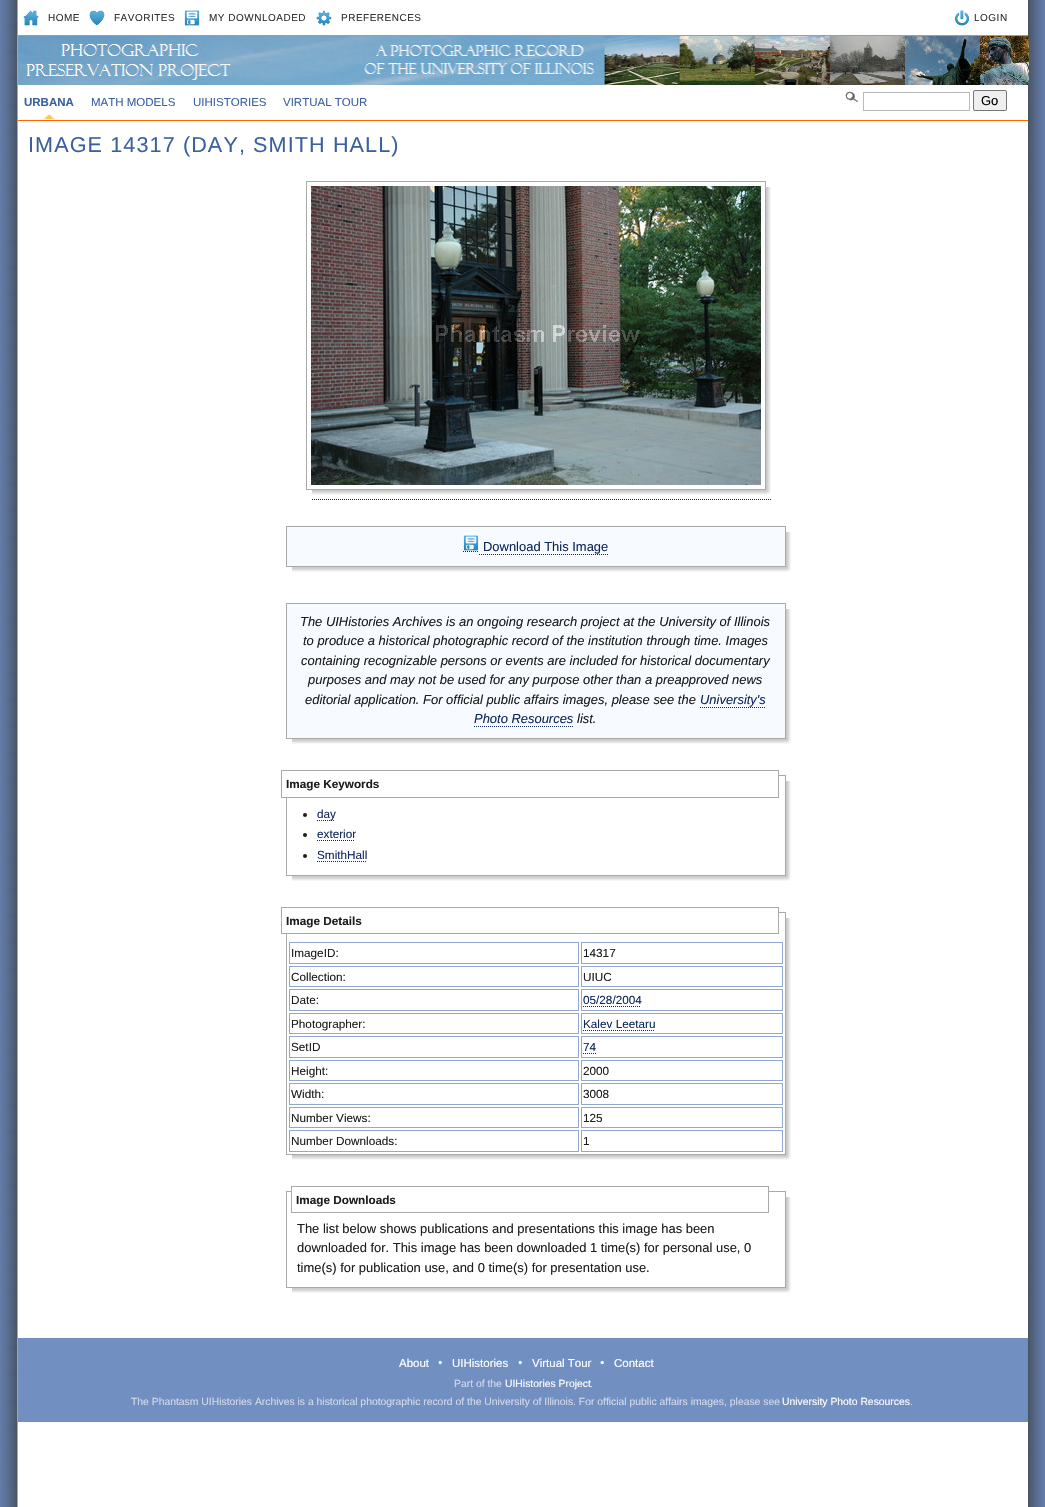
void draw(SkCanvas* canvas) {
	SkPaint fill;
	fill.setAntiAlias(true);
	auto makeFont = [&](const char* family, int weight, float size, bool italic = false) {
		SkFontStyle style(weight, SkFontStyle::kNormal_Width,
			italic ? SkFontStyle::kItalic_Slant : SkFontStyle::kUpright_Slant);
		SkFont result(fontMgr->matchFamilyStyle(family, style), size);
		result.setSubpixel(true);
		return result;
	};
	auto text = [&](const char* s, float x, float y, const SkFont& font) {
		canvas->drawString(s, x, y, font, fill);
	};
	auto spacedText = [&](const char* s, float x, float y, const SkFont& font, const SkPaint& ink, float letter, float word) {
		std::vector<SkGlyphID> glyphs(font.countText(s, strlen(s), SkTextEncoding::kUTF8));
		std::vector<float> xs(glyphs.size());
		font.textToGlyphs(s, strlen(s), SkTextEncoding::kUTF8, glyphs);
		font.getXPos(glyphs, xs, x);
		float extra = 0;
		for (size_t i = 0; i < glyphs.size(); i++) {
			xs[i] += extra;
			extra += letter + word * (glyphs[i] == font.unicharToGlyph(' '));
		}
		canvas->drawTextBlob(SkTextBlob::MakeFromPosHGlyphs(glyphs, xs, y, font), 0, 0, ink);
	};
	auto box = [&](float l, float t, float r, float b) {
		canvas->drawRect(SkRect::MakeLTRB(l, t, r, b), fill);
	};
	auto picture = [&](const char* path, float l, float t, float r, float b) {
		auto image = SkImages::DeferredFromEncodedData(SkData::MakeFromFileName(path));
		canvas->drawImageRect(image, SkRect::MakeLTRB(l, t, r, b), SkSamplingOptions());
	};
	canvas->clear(0xFFFFFFFF);
	picture("image0.png", 0, 0, 1045, 1507);
	fill.setColor(0xFFFFFFFF);
	box(18, 0, 1028, 1507);
	fill.setColor(0xFF9D9D9D);
	box(18, 35, 1028, 36);
	picture("image1.png", 23, 10, 39, 26);
	picture("image2.png", 89, 10, 105, 26);
	picture("image3.png", 184, 10, 200, 26);
	picture("image4.png", 316, 10, 332, 26);
	picture("image5.png", 955, 10, 969, 26);
	picture("image6.png", 18, 36, 1029, 85);
	fill.setColor(0xFFFF6600);
	box(18, 120, 1028, 121);
	picture("image7.png", 40, 90, 58, 119);
	picture("image8.png", 312, 187, 771, 495);
	fill.setStyle(SkPaint::kStroke_Style);
	fill.setStrokeWidth(1);
	fill.setColor(0xFFA9A9A9);
	canvas->drawRect(SkRect::MakeLTRB(306.5f, 181.5f, 765.5f, 489.5f), fill);
	picture("image9.png", 311, 186, 761, 485);
	fill.setColor(0xFF0F285C);
	fill.setPathEffect(SkDashPathEffect::Make({{1, 1}}, 0));
	canvas->drawPath(SkPathBuilder().moveTo(312, 499.5f).lineTo(772, 499.5f).detach(), fill);
	fill.setPathEffect(nullptr);
	picture("image10.png", 292, 532, 791, 572);
	fill.setStyle(SkPaint::kFill_Style);
	fill.setColor(0xFFF7FAFF);
	canvas->drawRect(SkRect::MakeLTRB(286.5f, 526.5f, 785.5f, 566.5f), fill);
	fill.setStyle(SkPaint::kStroke_Style);
	fill.setColor(0xFFA9A9A9);
	canvas->drawRect(SkRect::MakeLTRB(286.5f, 526.5f, 785.5f, 566.5f), fill);
	picture("image11.png", 463, 535, 479, 551);
	fill.setColor(0xFF0F285C);
	fill.setPathEffect(SkDashPathEffect::Make({{1, 1}}, 0));
	canvas->drawPath(SkPathBuilder().moveTo(463, 551.5f).lineTo(479, 551.5f).detach(), fill);
	fill.setPathEffect(nullptr);
	fill.setPathEffect(SkDashPathEffect::Make({{1, 1}}, 0));
	canvas->drawPath(SkPathBuilder().moveTo(479, 554.5f).lineTo(608, 554.5f).detach(), fill);
	fill.setPathEffect(nullptr);
	picture("image12.png", 292, 609, 791, 744);
	fill.setStyle(SkPaint::kFill_Style);
	fill.setColor(0xFFF7FAFF);
	canvas->drawRect(SkRect::MakeLTRB(286.5f, 603.5f, 785.5f, 738.5f), fill);
	fill.setStyle(SkPaint::kStroke_Style);
	fill.setColor(0xFFA9A9A9);
	canvas->drawRect(SkRect::MakeLTRB(286.5f, 603.5f, 785.5f, 738.5f), fill);
	fill.setColor(0xFF0F285C);
	fill.setPathEffect(SkDashPathEffect::Make({{1, 1}}, 0));
	canvas->drawPath(SkPathBuilder().moveTo(700, 707.5f).lineTo(766, 707.5f).detach(), fill);
	fill.setPathEffect(nullptr);
	fill.setPathEffect(SkDashPathEffect::Make({{1, 1}}, 0));
	canvas->drawPath(SkPathBuilder().moveTo(474, 726.5f).lineTo(574, 726.5f).detach(), fill);
	fill.setPathEffect(nullptr);
	picture("image13.png", 292, 781, 791, 881);
	fill.setColor(0xFFA9A9A9);
	canvas->drawRect(SkRect::MakeLTRB(286.5f, 775.5f, 785.5f, 875.5f), fill);
	fill.setStyle(SkPaint::kFill_Style);
	fill.setColor(0xFFFFFFFF);
	box(286, 775, 778, 797);
	fill.setStyle(SkPaint::kStroke_Style);
	fill.setColor(0xFFA9A9A9);
	canvas->drawRect(SkRect::MakeLTRB(281.5f, 770.5f, 778.5f, 797.5f), fill);
	fill.setStyle(SkPaint::kFill_Style);
	fill.setColor(0xFF1D1D1D);
	canvas->drawCircle(305, 815, 2, fill);
	fill.setStyle(SkPaint::kStroke_Style);
	fill.setColor(0xFF0F285C);
	fill.setPathEffect(SkDashPathEffect::Make({{1, 1}}, 0));
	canvas->drawPath(SkPathBuilder().moveTo(317, 820.5f).lineTo(335, 820.5f).detach(), fill);
	fill.setPathEffect(nullptr);
	fill.setStyle(SkPaint::kFill_Style);
	fill.setColor(0xFF1D1D1D);
	canvas->drawCircle(305, 835, 2, fill);
	fill.setStyle(SkPaint::kStroke_Style);
	fill.setColor(0xFF0F285C);
	fill.setPathEffect(SkDashPathEffect::Make({{1, 1}}, 0));
	canvas->drawPath(SkPathBuilder().moveTo(317, 840.5f).lineTo(355, 840.5f).detach(), fill);
	fill.setPathEffect(nullptr);
	fill.setStyle(SkPaint::kFill_Style);
	fill.setColor(0xFF1D1D1D);
	canvas->drawCircle(305, 856, 2, fill);
	fill.setStyle(SkPaint::kStroke_Style);
	fill.setColor(0xFF0F285C);
	fill.setPathEffect(SkDashPathEffect::Make({{1, 1}}, 0));
	canvas->drawPath(SkPathBuilder().moveTo(317, 861.5f).lineTo(366, 861.5f).detach(), fill);
	fill.setPathEffect(nullptr);
	picture("image14.png", 292, 918, 791, 1160);
	fill.setColor(0xFFA9A9A9);
	canvas->drawRect(SkRect::MakeLTRB(286.5f, 912.5f, 785.5f, 1154.5f), fill);
	fill.setStyle(SkPaint::kFill_Style);
	fill.setColor(0xFFFFFFFF);
	box(286, 912, 778, 933);
	fill.setStyle(SkPaint::kStroke_Style);
	fill.setColor(0xFFA9A9A9);
	canvas->drawRect(SkRect::MakeLTRB(281.5f, 907.5f, 778.5f, 933.5f), fill);
	fill.setColor(0xFF8FA8D4);
	canvas->drawRect(SkRect::MakeLTRB(289.5f, 942.5f, 578.5f, 963.5f), fill);
	canvas->drawRect(SkRect::MakeLTRB(581.5f, 942.5f, 782.5f, 963.5f), fill);
	canvas->drawRect(SkRect::MakeLTRB(289.5f, 966.5f, 578.5f, 986.5f), fill);
	canvas->drawRect(SkRect::MakeLTRB(581.5f, 966.5f, 782.5f, 986.5f), fill);
	canvas->drawRect(SkRect::MakeLTRB(289.5f, 989.5f, 578.5f, 1010.5f), fill);
	canvas->drawRect(SkRect::MakeLTRB(581.5f, 989.5f, 782.5f, 1010.5f), fill);
	fill.setColor(0xFF0F285C);
	fill.setPathEffect(SkDashPathEffect::Make({{1, 1}}, 0));
	canvas->drawPath(SkPathBuilder().moveTo(583, 1006.5f).lineTo(641, 1006.5f).detach(), fill);
	fill.setPathEffect(nullptr);
	fill.setColor(0xFF8FA8D4);
	canvas->drawRect(SkRect::MakeLTRB(289.5f, 1013.5f, 578.5f, 1033.5f), fill);
	canvas->drawRect(SkRect::MakeLTRB(581.5f, 1013.5f, 782.5f, 1033.5f), fill);
	fill.setColor(0xFF0F285C);
	fill.setPathEffect(SkDashPathEffect::Make({{1, 1}}, 0));
	canvas->drawPath(SkPathBuilder().moveTo(583, 1030.5f).lineTo(655, 1030.5f).detach(), fill);
	fill.setPathEffect(nullptr);
	fill.setColor(0xFF8FA8D4);
	canvas->drawRect(SkRect::MakeLTRB(289.5f, 1036.5f, 578.5f, 1057.5f), fill);
	canvas->drawRect(SkRect::MakeLTRB(581.5f, 1036.5f, 782.5f, 1057.5f), fill);
	fill.setColor(0xFF0F285C);
	fill.setPathEffect(SkDashPathEffect::Make({{1, 1}}, 0));
	canvas->drawPath(SkPathBuilder().moveTo(583, 1053.5f).lineTo(596, 1053.5f).detach(), fill);
	fill.setPathEffect(nullptr);
	fill.setColor(0xFF8FA8D4);
	canvas->drawRect(SkRect::MakeLTRB(289.5f, 1060.5f, 578.5f, 1080.5f), fill);
	canvas->drawRect(SkRect::MakeLTRB(581.5f, 1060.5f, 782.5f, 1080.5f), fill);
	canvas->drawRect(SkRect::MakeLTRB(289.5f, 1083.5f, 578.5f, 1104.5f), fill);
	canvas->drawRect(SkRect::MakeLTRB(581.5f, 1083.5f, 782.5f, 1104.5f), fill);
	canvas->drawRect(SkRect::MakeLTRB(289.5f, 1107.5f, 578.5f, 1127.5f), fill);
	canvas->drawRect(SkRect::MakeLTRB(581.5f, 1107.5f, 782.5f, 1127.5f), fill);
	canvas->drawRect(SkRect::MakeLTRB(289.5f, 1130.5f, 578.5f, 1151.5f), fill);
	canvas->drawRect(SkRect::MakeLTRB(581.5f, 1130.5f, 782.5f, 1151.5f), fill);
	picture("image15.png", 292, 1197, 791, 1293);
	fill.setColor(0xFFA9A9A9);
	canvas->drawRect(SkRect::MakeLTRB(286.5f, 1191.5f, 785.5f, 1287.5f), fill);
	fill.setStyle(SkPaint::kFill_Style);
	fill.setColor(0xFFFFFFFF);
	box(292, 1191, 768, 1192);
	fill.setStyle(SkPaint::kStroke_Style);
	fill.setColor(0xFFA9A9A9);
	canvas->drawRect(SkRect::MakeLTRB(291.5f, 1186.5f, 768.5f, 1212.5f), fill);
	fill.setStyle(SkPaint::kFill_Style);
	fill.setColor(0xFF728FC2);
	box(18, 1338, 1028, 1422);
	picture("image16.png", 438, 1361, 442, 1365);
	picture("image16.png", 518, 1361, 522, 1365);
	picture("image16.png", 600, 1361, 604, 1365);
	picture("image17.png", 845, 91, 858, 102);
	fill.setStyle(SkPaint::kStroke_Style);
	fill.setColor(0xFFBBBBBB);
	canvas->drawRect(SkRect::MakeLTRB(863.5f, 92.5f, 969.5f, 110.5f), fill);
	fill.setStyle(SkPaint::kFill_Style);
	fill.setColor(0xFFEFEFEF);
	canvas->drawRoundRect(SkRect::MakeLTRB(973.5f, 90.5f, 1006.5f, 110.5f), 1.5f, 1.5f, fill);
	fill.setStyle(SkPaint::kStroke_Style);
	fill.setColor(0xFF767676);
	canvas->drawRoundRect(SkRect::MakeLTRB(973.5f, 90.5f, 1006.5f, 110.5f), 1.5f, 1.5f, fill);
	auto font1 = makeFont("Liberation Sans", 400, 10);
	fill.setStyle(SkPaint::kFill_Style);
	fill.setColor(0xFF333333);
	spacedText("HOME", 48, 21, font1, fill, 0.5f, 0);
	spacedText("FAVORITES", 114, 21, font1, fill, 0.5f, 0);
	spacedText("MY DOWNLOADED", 209, 21, font1, fill, 0.5f, 0);
	spacedText("PREFERENCES", 341, 21, font1, fill, 0.5f, 0);
	spacedText("LOGIN", 974, 21, font1, fill, 0.5f, 0);
	auto font2 = makeFont("Liberation Sans", 700, 11.5f);
	fill.setColor(0xFF3B60A1);
	text("URBANA", 24, 106, font2);
	auto font3 = makeFont("Liberation Sans", 400, 11.5f);
	text("MATH MODELS", 91, 106, font3);
	text("UIHISTORIES", 193, 106, font3);
	text("VIRTUAL TOUR", 283, 106, font3);
	auto font4 = makeFont("Liberation Sans", 400, 21.6f);
	spacedText("IMAGE 14317 (DAY, SMITH HALL)", 28, 152, font4, fill, 1.1f, 0);
	auto font5 = makeFont("Liberation Sans", 400, 12.95f);
	fill.setColor(0xFF0F285C);
	text("Download This Image", 483, 551, font5);
	auto font6 = makeFont("Liberation Sans", 400, 12.95f, true);
	fill.setColor(0xFF1D1D1D);
	text("The UIHistories Archives is an ongoing research project at the University of Illinois", 300, 626, font6);
	text("to produce a historical photographic record of the institution through time. Images", 303, 645, font6);
	text("containing recognizable persons or events are included for historical documentary", 301, 665, font6);
	text("purposes and may not be used for any purpose other than a preapproved news", 308, 684, font6);
	text("editorial application. For official public affairs images, please see the", 305, 704, font6);
	fill.setColor(0xFF0F285C);
	text("University's", 700, 704, font6);
	text("Photo Resources", 474, 723, font6);
	fill.setColor(0xFF1D1D1D);
	text("list.", 577, 723, font6);
	auto font7 = makeFont("Liberation Sans", 700, 11.75f);
	text("Image Keywords", 286, 788, font7);
	auto font8 = makeFont("Liberation Sans", 400, 11.75f);
	fill.setColor(0xFF0F285C);
	text("day", 317, 818, font8);
	text("exterior", 317, 838, font8);
	text("SmithHall", 317, 859, font8);
	fill.setColor(0xFF1D1D1D);
	text("Image Details", 286, 925, font7);
	text("ImageID:", 291, 957, font8);
	text("14317", 583, 957, font8);
	text("Collection:", 291, 981, font8);
	text("UIUC", 583, 981, font8);
	text("Date:", 291, 1004, font8);
	fill.setColor(0xFF0F285C);
	text("05/28/2004", 583, 1004, font8);
	fill.setColor(0xFF1D1D1D);
	text("Photographer:", 291, 1028, font8);
	fill.setColor(0xFF0F285C);
	text("Kalev Leetaru", 583, 1028, font8);
	fill.setColor(0xFF1D1D1D);
	text("SetID", 291, 1051, font8);
	fill.setColor(0xFF0F285C);
	text("74", 583, 1051, font8);
	fill.setColor(0xFF1D1D1D);
	text("Height:", 291, 1075, font8);
	text("2000", 583, 1075, font8);
	text("Width:", 291, 1098, font8);
	text("3008", 583, 1098, font8);
	text("Number Views:", 291, 1122, font8);
	text("125", 583, 1122, font8);
	text("Number Downloads:", 291, 1145, font8);
	text("1", 583, 1145, font8);
	text("Image Downloads", 296, 1204, font7);
	text("The list below shows publications and presentations this image has been", 297, 1233, font5);
	text("downloaded for. This image has been downloaded 1 time(s) for personal use, 0", 297, 1252, font5);
	text("time(s) for publication use, and 0 time(s) for presentation use.", 297, 1272, font5);
	fill.setColor(0xFFFFFFFF);
	text("About", 399, 1367, font3);
	text("UIHistories", 452, 1367, font3);
	text("Virtual Tour", 532, 1367, font3);
	text("Contact", 614, 1367, font3);
	auto font9 = makeFont("Liberation Sans", 400, 10.37f);
	fill.setColor(0xFFD2DAE9);
	text("Part of the", 454, 1387, font9);
	fill.setColor(0xFFFFFFFF);
	text("UIHistories Project", 505, 1387, font9);
	fill.setColor(0xFFD2DAE9);
	text(".", 590, 1387, font9);
	text("The Phantasm UIHistories Archives is a historical photographic record of the University of Illinois. For official public affairs images, please see", 131, 1405, font9);
	fill.setColor(0xFFFFFFFF);
	text("University Photo Resources", 782, 1405, font9);
	fill.setColor(0xFFD2DAE9);
	text(".", 910, 1405, font9);
	auto font10 = makeFont("Liberation Sans", 400, 13);
	fill.setColor(0xFF000000);
	text("Go", 981, 105, font10);
}
